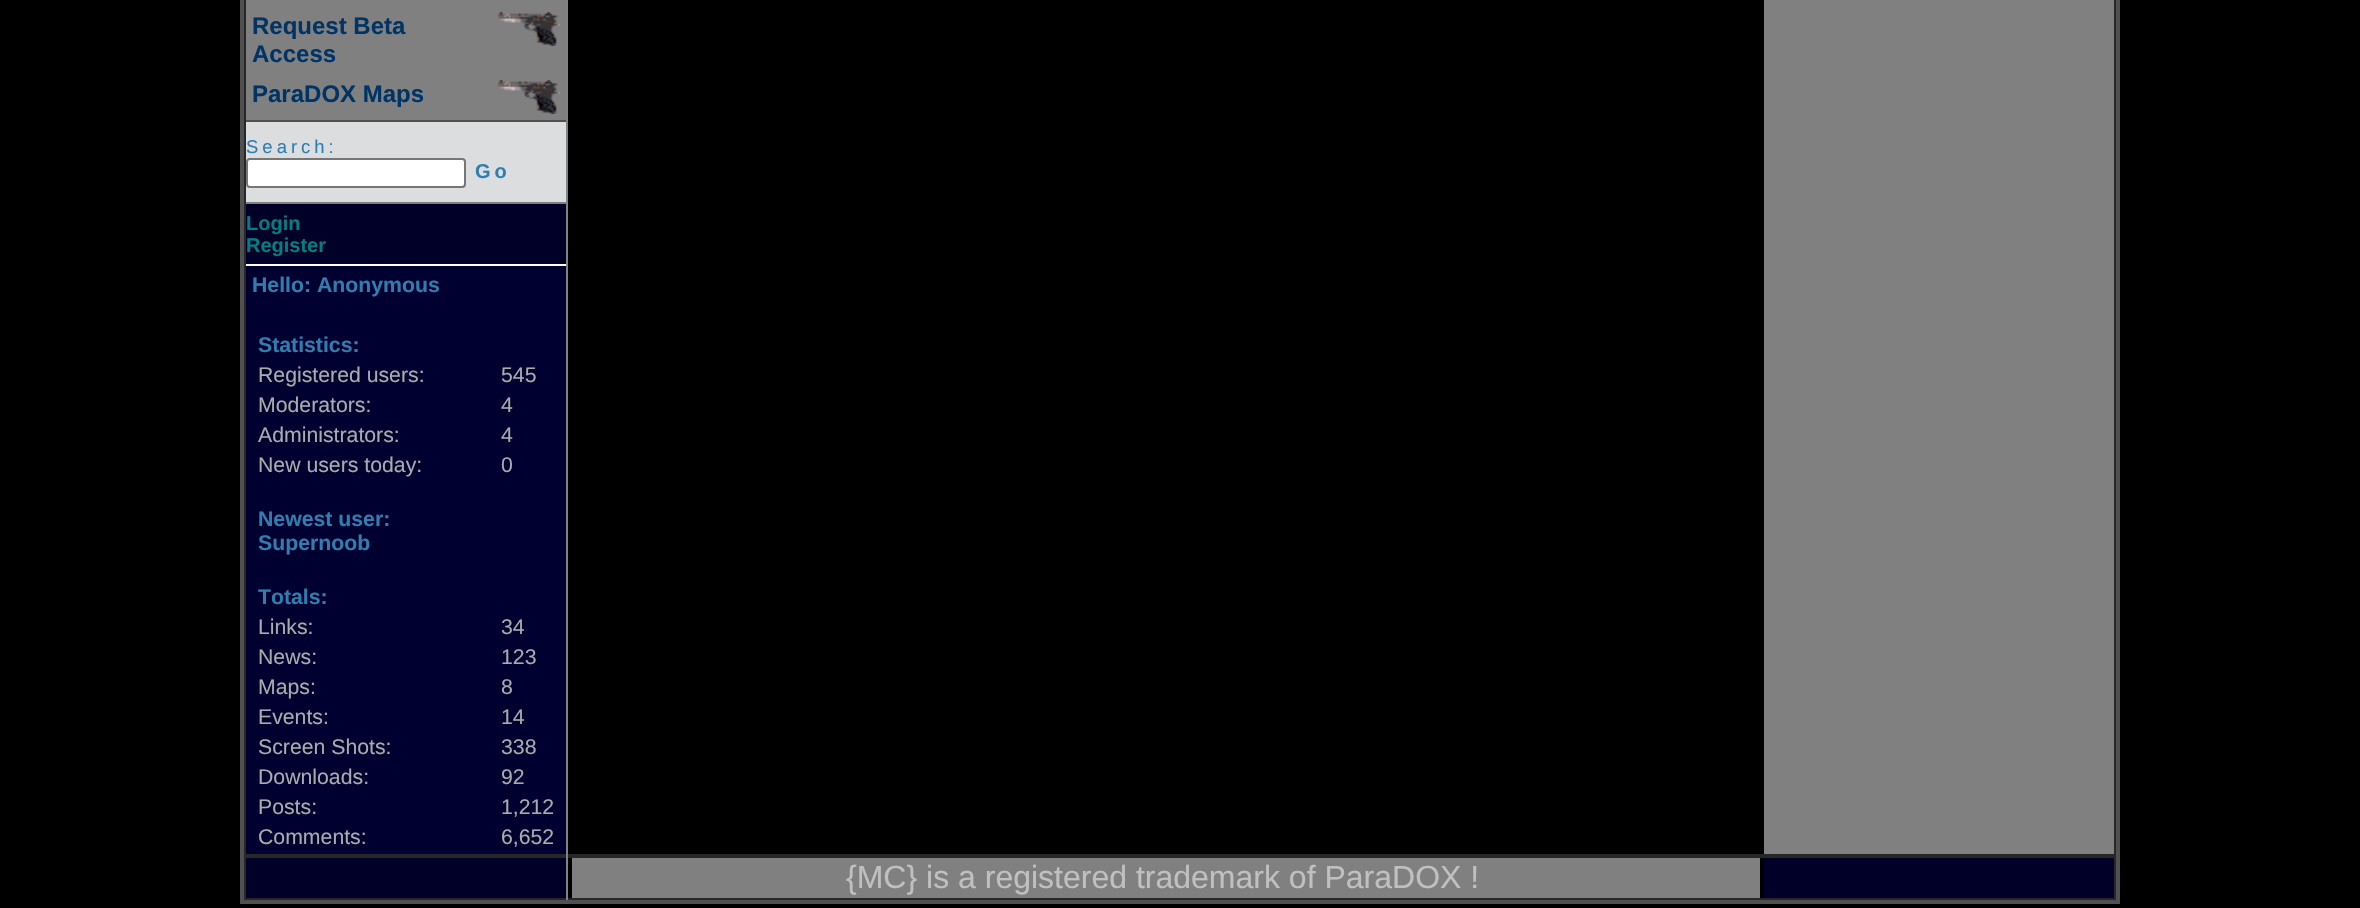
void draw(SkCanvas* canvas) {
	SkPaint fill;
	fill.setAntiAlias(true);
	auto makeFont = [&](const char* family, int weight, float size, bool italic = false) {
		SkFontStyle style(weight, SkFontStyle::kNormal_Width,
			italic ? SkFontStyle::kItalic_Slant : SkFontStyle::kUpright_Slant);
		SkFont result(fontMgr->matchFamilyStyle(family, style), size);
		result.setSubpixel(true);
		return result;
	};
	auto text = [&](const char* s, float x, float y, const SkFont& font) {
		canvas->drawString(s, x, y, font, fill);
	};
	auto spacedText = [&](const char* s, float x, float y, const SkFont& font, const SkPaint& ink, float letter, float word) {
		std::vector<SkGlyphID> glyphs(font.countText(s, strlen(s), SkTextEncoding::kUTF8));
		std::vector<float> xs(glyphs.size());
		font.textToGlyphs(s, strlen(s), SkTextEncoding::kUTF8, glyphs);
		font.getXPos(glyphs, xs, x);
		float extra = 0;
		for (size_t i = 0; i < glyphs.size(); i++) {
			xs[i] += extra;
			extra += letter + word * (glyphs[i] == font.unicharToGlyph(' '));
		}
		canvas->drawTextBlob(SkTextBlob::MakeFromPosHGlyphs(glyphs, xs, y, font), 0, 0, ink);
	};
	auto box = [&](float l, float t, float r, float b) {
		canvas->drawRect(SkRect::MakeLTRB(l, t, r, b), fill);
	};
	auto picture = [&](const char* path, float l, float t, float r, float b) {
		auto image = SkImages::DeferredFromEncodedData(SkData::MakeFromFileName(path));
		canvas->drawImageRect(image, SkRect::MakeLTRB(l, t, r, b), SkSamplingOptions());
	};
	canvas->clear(0xFF000000);
	fill.setColor(0xFF505050);
	box(240, 0, 244, 904);
	fill.setColor(0xFF282828);
	box(244, 0, 246, 900);
	fill.setColor(0xFF808080);
	box(246, 0, 566, 204);
	picture("image0.png", 498, 12, 560, 46);
	picture("image0.png", 498, 80, 560, 114);
	fill.setColor(0xFF505050);
	box(246, 120, 566, 122);
	fill.setColor(0xFFDCDDDE);
	box(246, 122, 566, 202);
	fill.setColor(0xFFFFFFFF);
	canvas->drawRoundRect(SkRect::MakeLTRB(247, 159, 465, 187), 3, 3, fill);
	fill.setStyle(SkPaint::kStroke_Style);
	fill.setStrokeWidth(2);
	fill.setColor(0xFF767676);
	canvas->drawRoundRect(SkRect::MakeLTRB(247, 159, 465, 187), 3, 3, fill);
	fill.setStyle(SkPaint::kFill_Style);
	fill.setColor(0xFF000028);
	box(246, 204, 566, 264);
	fill.setColor(0xFFFFFFFF);
	box(246, 264, 566, 266);
	fill.setColor(0xFF000030);
	box(246, 266, 566, 854);
	fill.setColor(0xFF828282);
	box(566, 0, 568, 900);
	fill.setColor(0xFF808080);
	box(1764, 0, 2114, 854);
	fill.setColor(0xFF282828);
	box(2114, 0, 2116, 900);
	fill.setColor(0xFF272727);
	box(246, 854, 566, 858);
	box(568, 854, 2114, 858);
	fill.setColor(0xFF000028);
	box(246, 858, 566, 898);
	fill.setColor(0xFF808080);
	box(572, 858, 1760, 898);
	fill.setColor(0xFF000028);
	box(1764, 858, 2114, 898);
	fill.setColor(0xFF272727);
	box(246, 898, 566, 900);
	box(568, 898, 2114, 900);
	fill.setColor(0xFF505050);
	box(2116, 0, 2120, 900);
	box(244, 900, 2120, 904);
	auto font1 = makeFont("Liberation Sans", 700, 24);
	fill.setColor(0xFF003366);
	text("Request Beta", 252, 34, font1);
	text("Access", 252, 62, font1);
	text("ParaDOX Maps", 252, 102, font1);
	auto font2 = makeFont("Liberation Sans", 400, 18.5f);
	fill.setColor(0xFF2F7EB0);
	spacedText("Search:", 246, 153, font2, fill, 4, 0);
	auto font3 = makeFont("Liberation Sans", 700, 20);
	spacedText("Go", 475, 178, font3, fill, 4, 0);
	fill.setColor(0xFF008080);
	text("Login", 246, 230, font3);
	text("Register", 246, 252, font3);
	auto font4 = makeFont("Liberation Sans", 700, 21.25f);
	fill.setColor(0xFF2F7EB0);
	text("Hello: Anonymous", 252, 292, font4);
	text("Statistics:", 258, 352, font4);
	auto font5 = makeFont("Liberation Sans", 400, 21.25f);
	fill.setColor(0xFFABABAB);
	text("Registered users:", 258, 382, font5);
	text("545", 501, 382, font5);
	text("Moderators:", 258, 412, font5);
	text("4", 501, 412, font5);
	text("Administrators:", 258, 442, font5);
	text("4", 501, 442, font5);
	text("New users today:", 258, 472, font5);
	text("0", 501, 472, font5);
	fill.setColor(0xFF2F7EB0);
	text("Newest user:", 258, 526, font4);
	text("Supernoob", 258, 550, font4);
	text("Totals:", 258, 604, font4);
	fill.setColor(0xFFABABAB);
	text("Links:", 258, 634, font5);
	text("34", 501, 634, font5);
	text("News:", 258, 664, font5);
	text("123", 501, 664, font5);
	text("Maps:", 258, 694, font5);
	text("8", 501, 694, font5);
	text("Events:", 258, 724, font5);
	text("14", 501, 724, font5);
	text("Screen Shots:", 258, 754, font5);
	text("338", 501, 754, font5);
	text("Downloads:", 258, 784, font5);
	text("92", 501, 784, font5);
	text("Posts:", 258, 814, font5);
	text("1,212", 501, 814, font5);
	text("Comments:", 258, 844, font5);
	text("6,652", 501, 844, font5);
	auto font6 = makeFont("Liberation Sans", 400, 32);
	fill.setColor(0xFFC0C0C0);
	text("{MC} is a registered trademark of ParaDOX !", 846, 888, font6);
}
